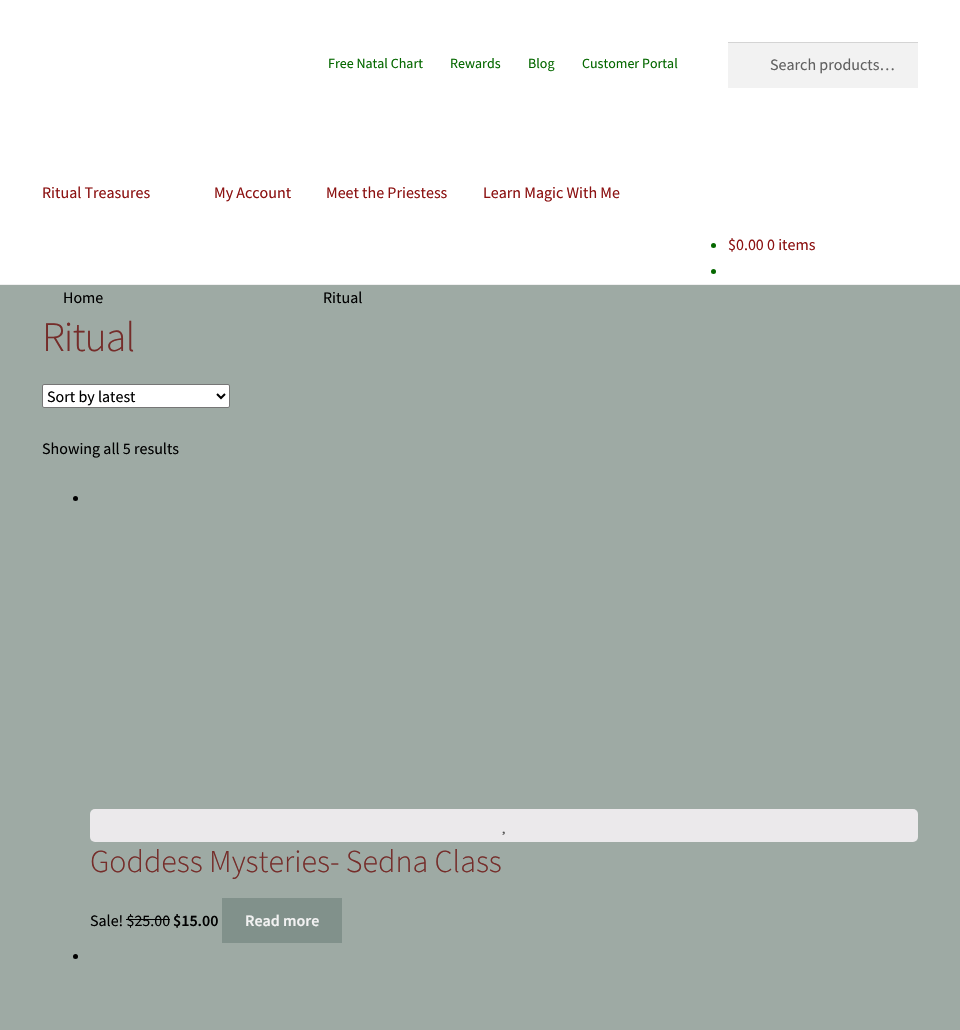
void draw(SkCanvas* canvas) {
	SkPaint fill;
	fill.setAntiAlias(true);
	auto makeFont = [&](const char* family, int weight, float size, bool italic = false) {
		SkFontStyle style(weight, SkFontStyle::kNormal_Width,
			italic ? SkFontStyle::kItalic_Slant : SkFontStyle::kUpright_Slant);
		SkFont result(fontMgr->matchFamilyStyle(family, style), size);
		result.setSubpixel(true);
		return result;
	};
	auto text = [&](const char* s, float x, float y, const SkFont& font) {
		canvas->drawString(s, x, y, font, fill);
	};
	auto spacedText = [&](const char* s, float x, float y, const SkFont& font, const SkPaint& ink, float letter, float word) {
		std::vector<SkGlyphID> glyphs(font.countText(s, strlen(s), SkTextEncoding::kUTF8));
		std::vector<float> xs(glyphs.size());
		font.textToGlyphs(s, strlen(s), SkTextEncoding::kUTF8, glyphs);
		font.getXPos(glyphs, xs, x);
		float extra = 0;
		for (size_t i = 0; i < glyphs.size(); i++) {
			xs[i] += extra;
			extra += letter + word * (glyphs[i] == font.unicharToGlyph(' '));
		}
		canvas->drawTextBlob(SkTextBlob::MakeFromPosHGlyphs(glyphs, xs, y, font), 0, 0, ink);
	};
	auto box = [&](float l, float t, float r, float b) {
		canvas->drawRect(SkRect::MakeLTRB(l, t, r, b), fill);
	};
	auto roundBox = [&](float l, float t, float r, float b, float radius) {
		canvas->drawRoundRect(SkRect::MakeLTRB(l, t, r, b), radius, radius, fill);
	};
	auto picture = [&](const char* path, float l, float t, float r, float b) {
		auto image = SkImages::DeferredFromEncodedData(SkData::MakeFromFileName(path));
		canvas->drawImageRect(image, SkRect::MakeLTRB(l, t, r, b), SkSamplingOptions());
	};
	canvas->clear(0xFF9EAAA4);
	fill.setColor(0xFFFFFFFF);
	box(0, 0, 960, 284);
	fill.setColor(0xFFF0F0F0);
	box(0, 284, 960, 285);
	fill.setColor(0xFFF2F2F2);
	box(728, 43, 918, 88);
	fill.setColor(0xFFD4D4D4);
	box(728, 42, 918, 43);
	fill.setColor(0xFF056800);
	canvas->drawCircle(713.5f, 245.5f, 2.5f, fill);
	canvas->drawCircle(713.5f, 271.5f, 2.5f, fill);
	fill.setColor(0xFFFFFFFF);
	canvas->drawRoundRect(SkRect::MakeLTRB(42.5f, 384.5f, 229.5f, 407.5f), 1.5f, 1.5f, fill);
	fill.setStyle(SkPaint::kStroke_Style);
	fill.setStrokeWidth(1);
	fill.setColor(0xFF767676);
	canvas->drawRoundRect(SkRect::MakeLTRB(42.5f, 384.5f, 229.5f, 407.5f), 1.5f, 1.5f, fill);
	fill.setStrokeWidth(2);
	fill.setColor(0xFF000000);
	canvas->drawPath(SkPathBuilder().moveTo(217, 394).lineTo(221, 398).lineTo(225, 394).detach(), fill);
	fill.setStyle(SkPaint::kFill_Style);
	canvas->drawCircle(75.5f, 498.5f, 2.5f, fill);
	fill.setColor(0xFFEBE9EB);
	roundBox(90, 809, 918, 842, 5);
	picture("image0.png", 502, 831, 505, 835);
	fill.setColor(0xFF000000);
	box(126, 919, 170, 920);
	fill.setColor(0xFF81918B);
	box(222, 898, 342, 943);
	fill.setColor(0xFF000000);
	canvas->drawCircle(75.5f, 956.5f, 2.5f, fill);
	auto font1 = makeFont("Source Sans Pro", 400, 14);
	fill.setColor(0xFF056800);
	text("Free Natal Chart", 328, 68, font1);
	text("Rewards", 450, 68, font1);
	text("Blog", 528, 68, font1);
	text("Customer Portal", 582, 68, font1);
	auto font2 = makeFont("Source Sans Pro", 400, 16);
	fill.setColor(0xFF616161);
	text("Search products…", 770, 70, font2);
	fill.setColor(0xFF8C1212);
	text("Ritual Treasures", 42, 198, font2);
	text("My Account", 214, 198, font2);
	text("Meet the Priestess", 326, 198, font2);
	text("Learn Magic With Me", 483, 198, font2);
	text("$0.00 0 items", 728, 250, font2);
	fill.setColor(0xFF000000);
	text("Home", 63, 303, font2);
	text("Ritual", 323, 303, font2);
	auto font3 = makeFont("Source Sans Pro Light", 300, 42);
	fill.setColor(0xFF752D2A);
	spacedText("Ritual", 42, 351, font3, fill, -1, 0);
	fill.setColor(0xFF000000);
	text("Sort by latest", 47, 402, font2);
	text("Showing all 5 results", 42, 454, font2);
	auto font4 = makeFont("Source Sans Pro Light", 300, 32);
	fill.setColor(0xFF752D2A);
	text("Goddess Mysteries- Sedna Class", 90, 872, font4);
	fill.setColor(0xFF000000);
	text("Sale! $25.00", 90, 926, font2);
	auto font5 = makeFont("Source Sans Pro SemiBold", 600, 16);
	text("$15.00", 173, 926, font5);
	fill.setColor(0xFFF2F2F2);
	text("Read more", 245, 926, font5);
}
